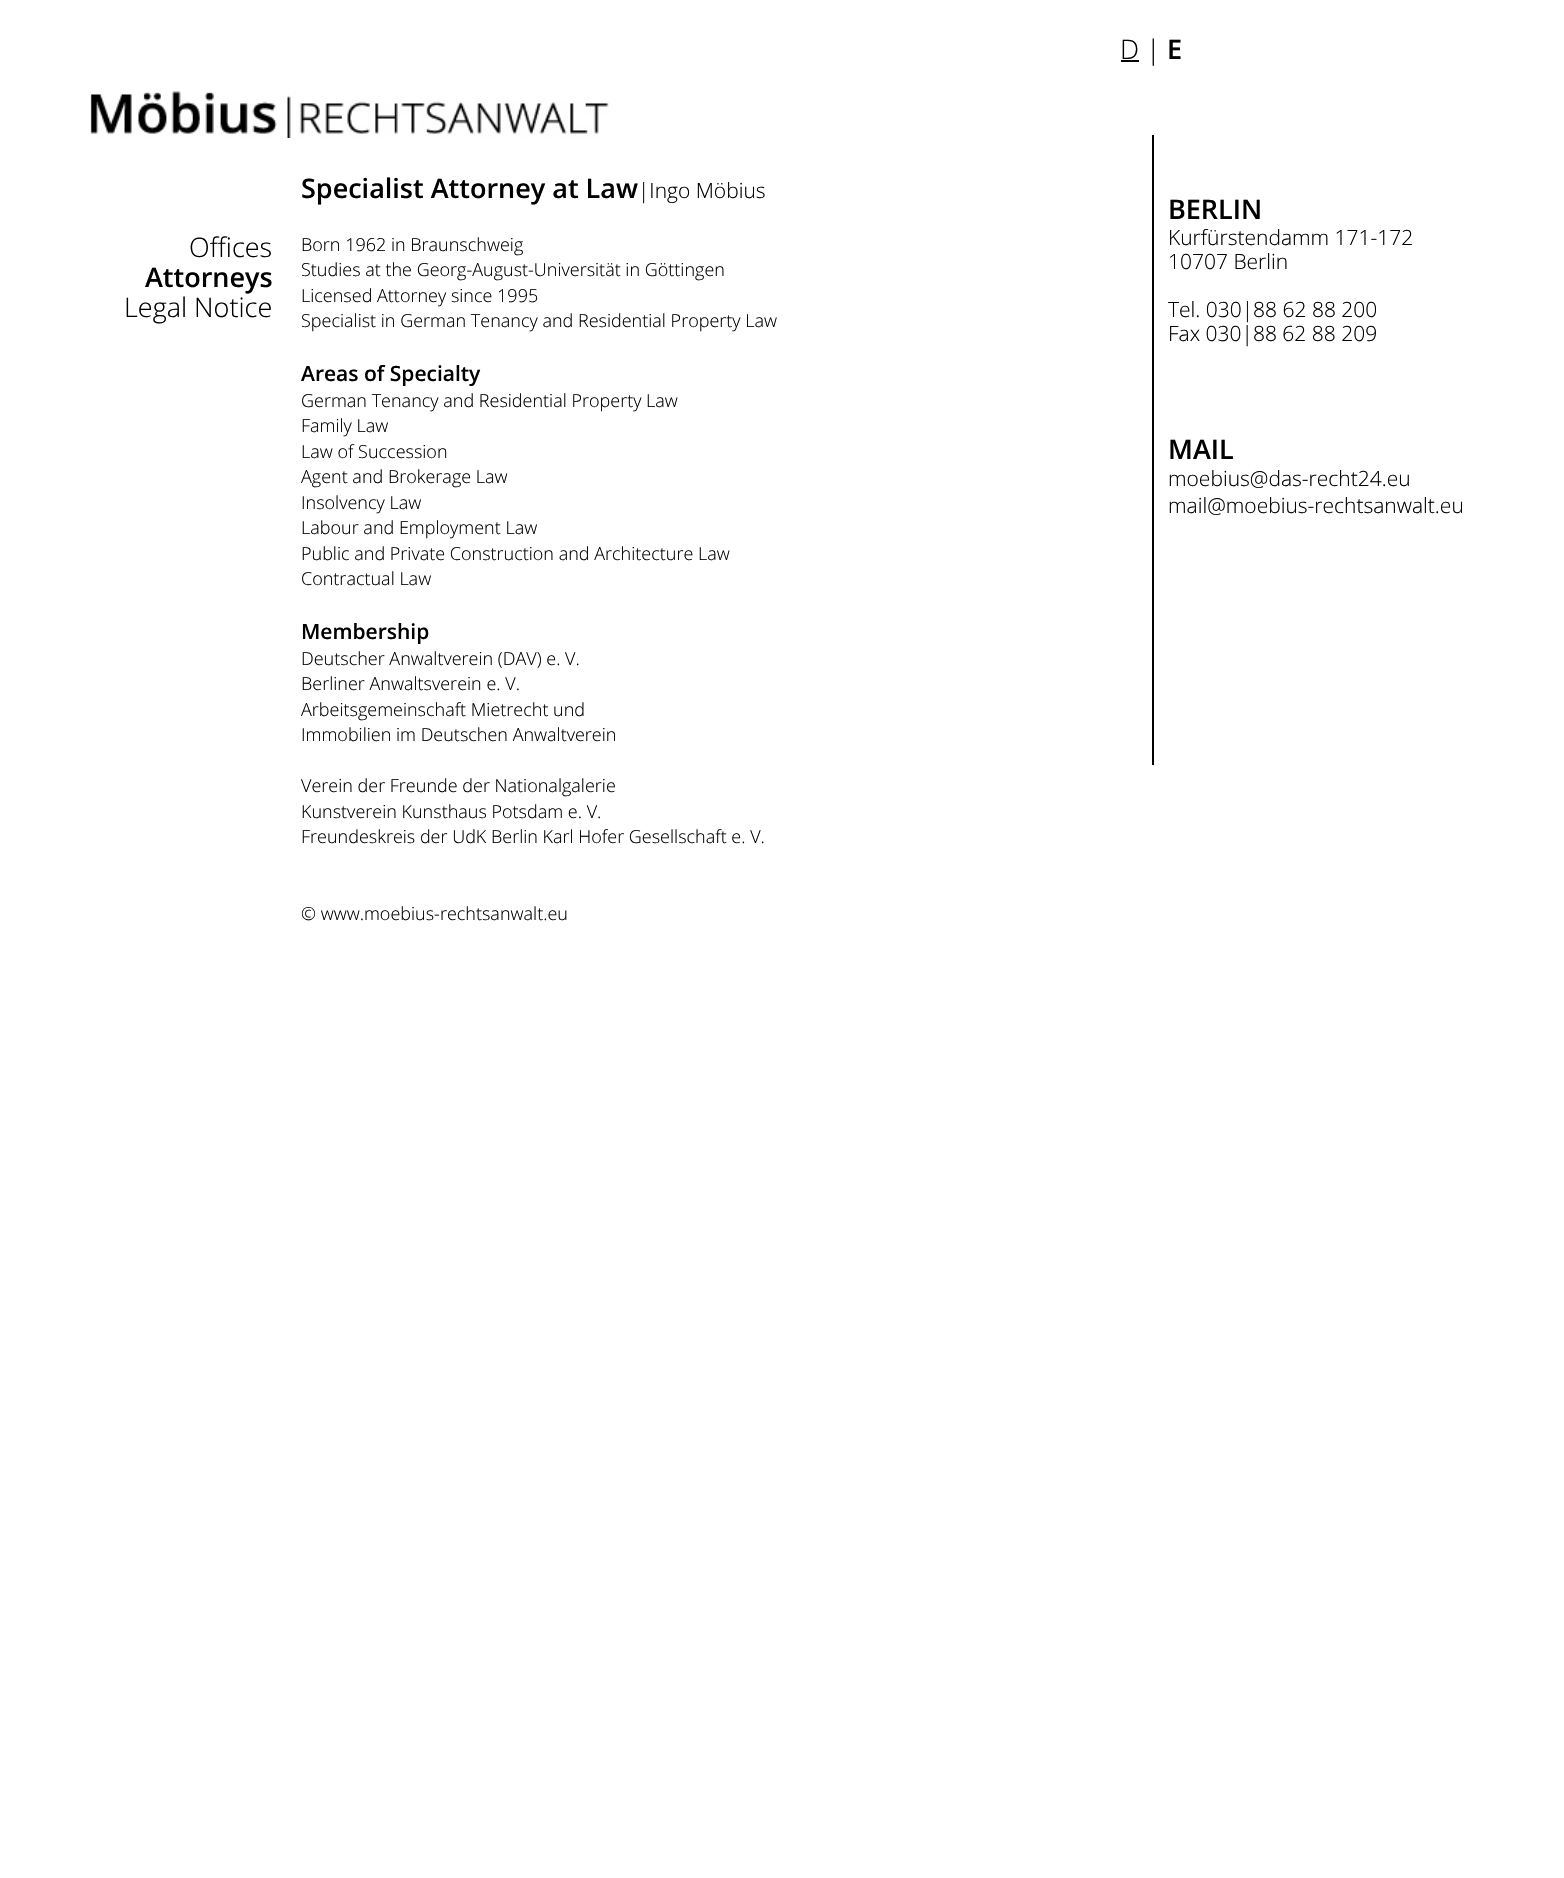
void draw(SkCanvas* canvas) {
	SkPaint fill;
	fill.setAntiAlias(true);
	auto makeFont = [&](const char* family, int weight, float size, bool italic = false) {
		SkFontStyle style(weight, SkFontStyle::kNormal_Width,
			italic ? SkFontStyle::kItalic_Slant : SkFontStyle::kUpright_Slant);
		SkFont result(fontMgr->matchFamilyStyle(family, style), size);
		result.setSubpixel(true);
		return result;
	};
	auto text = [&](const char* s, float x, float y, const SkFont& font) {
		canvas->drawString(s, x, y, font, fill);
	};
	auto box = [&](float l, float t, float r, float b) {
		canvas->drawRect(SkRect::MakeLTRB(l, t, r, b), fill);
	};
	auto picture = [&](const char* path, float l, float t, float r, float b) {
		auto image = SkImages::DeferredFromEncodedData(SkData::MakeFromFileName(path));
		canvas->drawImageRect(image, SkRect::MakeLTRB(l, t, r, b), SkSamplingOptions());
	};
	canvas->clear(0xFFFFFFFF);
	picture("image0.png", 90, 91, 609, 138);
	fill.setColor(0xFF000000);
	box(1121, 60, 1139, 62);
	box(1152, 135, 1154, 765);
	auto font1 = makeFont("Open Sans", 300, 27);
	text("Offices", 189, 257, font1);
	auto font2 = makeFont("Open Sans", 600, 27);
	text("Attorneys", 145, 287, font2);
	text("Legal Notice", 124, 317, font1);
	text("Specialist Attorney at Law", 301, 198, font2);
	auto font3 = makeFont("Open Sans", 300, 21);
	text("|Ingo Möbius", 638, 198, font3);
	auto font4 = makeFont("Open Sans", 300, 18);
	text("Born 1962 in Braunschweig", 301, 251, font4);
	text("Studies at the Georg-August-Universität in Göttingen", 301, 276, font4);
	text("Licensed Attorney since 1995", 301, 302, font4);
	text("Specialist in German Tenancy and Residential Property Law", 301, 327, font4);
	auto font5 = makeFont("Open Sans", 600, 21);
	text("Areas of Specialty", 301, 381, font5);
	text("German Tenancy and Residential Property Law", 301, 407, font4);
	text("Family Law", 301, 432, font4);
	text("Law of Succession", 301, 458, font4);
	text("Agent and Brokerage Law", 301, 483, font4);
	text("Insolvency Law", 301, 509, font4);
	text("Labour and Employment Law", 301, 534, font4);
	text("Public and Private Construction and Architecture Law", 301, 560, font4);
	text("Contractual Law", 301, 585, font4);
	text("Membership", 301, 639, font5);
	text("Deutscher Anwaltverein (DAV) e. V.", 301, 665, font4);
	text("Berliner Anwaltsverein e. V.", 301, 690, font4);
	text("Arbeitsgemeinschaft Mietrecht und", 301, 716, font4);
	text("Immobilien im Deutschen Anwaltverein", 301, 741, font4);
	text("Verein der Freunde der Nationalgalerie", 301, 792, font4);
	text("Kunstverein Kunsthaus Potsdam e. V.", 301, 818, font4);
	text("Freundeskreis der UdK Berlin Karl Hofer Gesellschaft e. V.", 301, 843, font4);
	text("© www.moebius-rechtsanwalt.eu", 301, 920, font4);
	text("D |", 1120, 59, font1);
	text("E", 1167, 59, font2);
	text("BERLIN", 1168, 219, font2);
	text("Kurfürstendamm 171-172", 1168, 245, font3);
	text("10707 Berlin", 1168, 269, font3);
	text("Tel. 030|88 62 88 200", 1168, 317, font3);
	text("Fax 030|88 62 88 209", 1168, 341, font3);
	text("MAIL", 1168, 459, font2);
	text("moebius@das-recht24.eu", 1168, 486, font3);
	text("mail@moebius-rechtsanwalt.eu", 1168, 513, font3);
}
